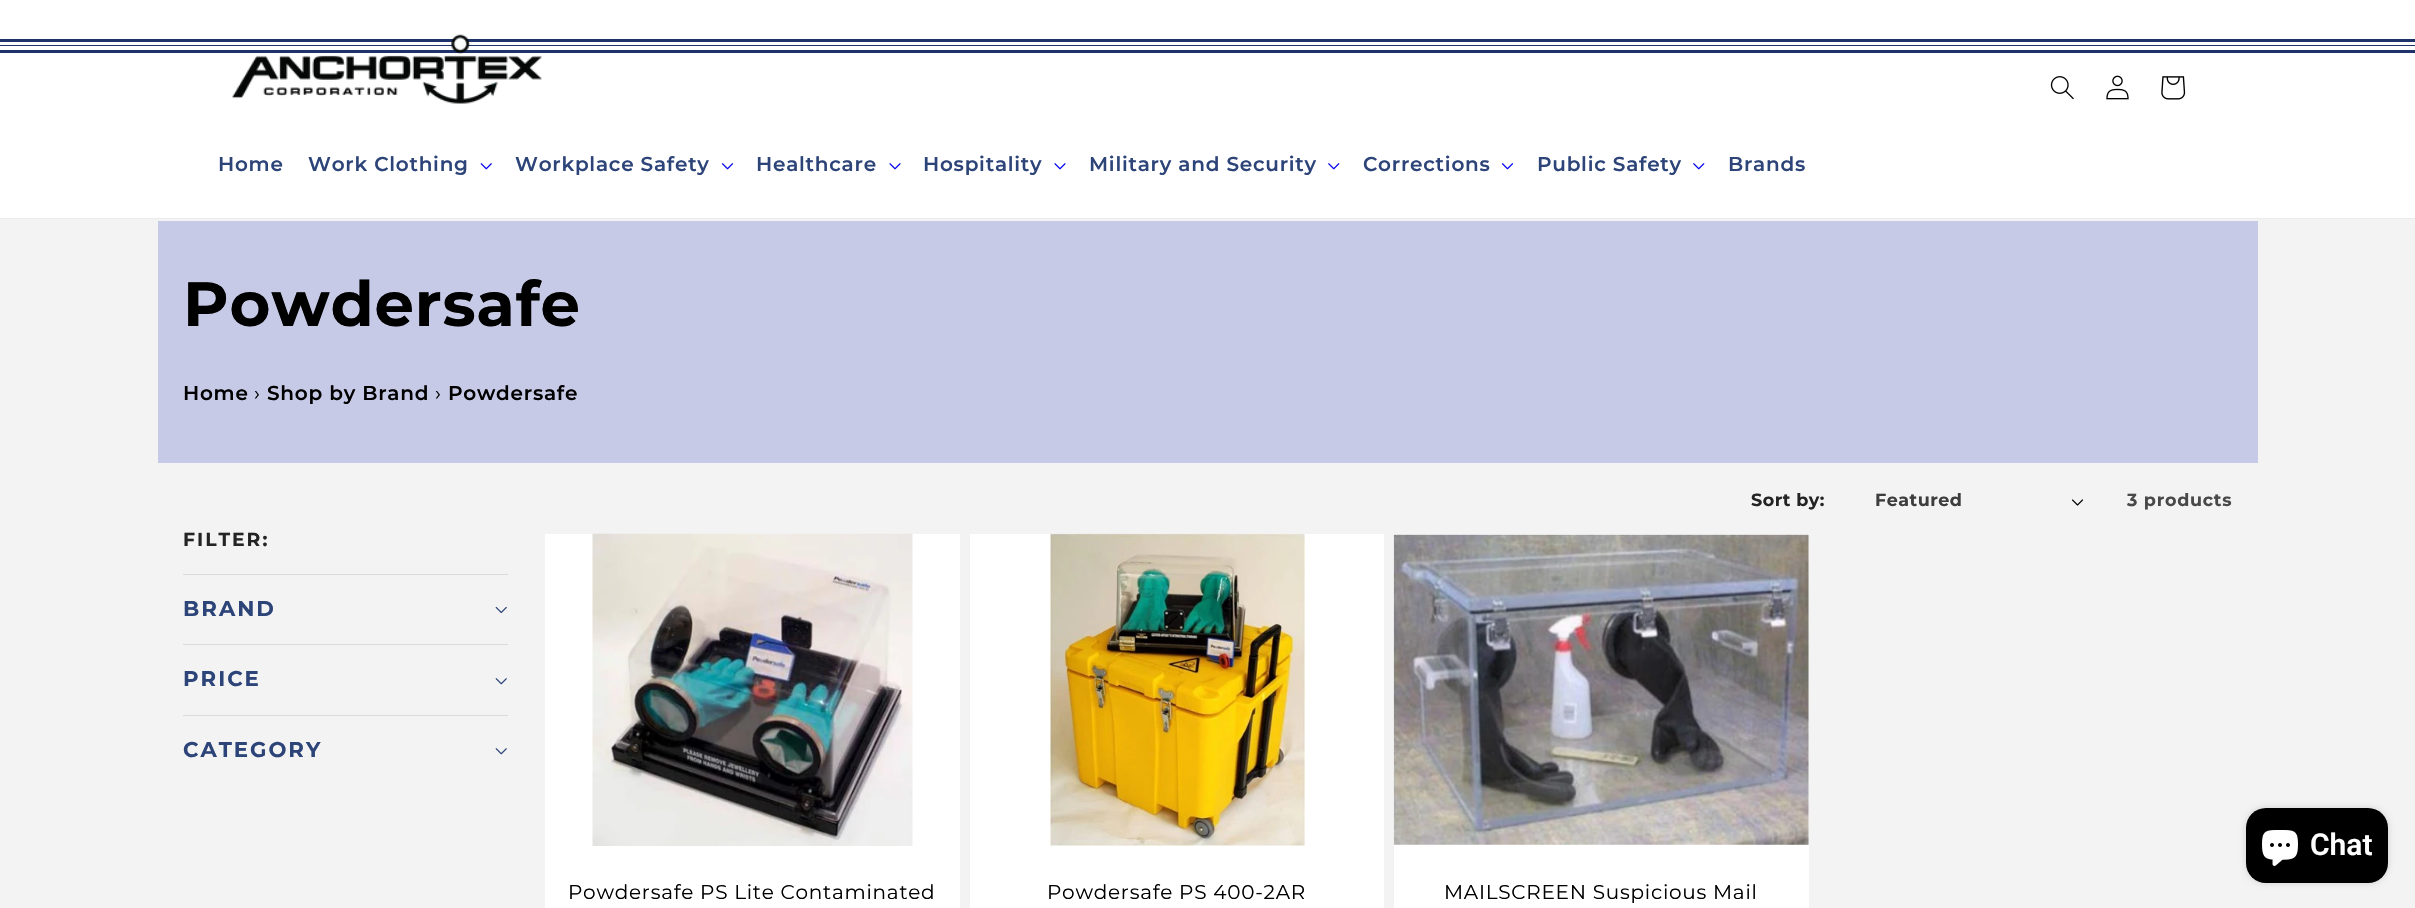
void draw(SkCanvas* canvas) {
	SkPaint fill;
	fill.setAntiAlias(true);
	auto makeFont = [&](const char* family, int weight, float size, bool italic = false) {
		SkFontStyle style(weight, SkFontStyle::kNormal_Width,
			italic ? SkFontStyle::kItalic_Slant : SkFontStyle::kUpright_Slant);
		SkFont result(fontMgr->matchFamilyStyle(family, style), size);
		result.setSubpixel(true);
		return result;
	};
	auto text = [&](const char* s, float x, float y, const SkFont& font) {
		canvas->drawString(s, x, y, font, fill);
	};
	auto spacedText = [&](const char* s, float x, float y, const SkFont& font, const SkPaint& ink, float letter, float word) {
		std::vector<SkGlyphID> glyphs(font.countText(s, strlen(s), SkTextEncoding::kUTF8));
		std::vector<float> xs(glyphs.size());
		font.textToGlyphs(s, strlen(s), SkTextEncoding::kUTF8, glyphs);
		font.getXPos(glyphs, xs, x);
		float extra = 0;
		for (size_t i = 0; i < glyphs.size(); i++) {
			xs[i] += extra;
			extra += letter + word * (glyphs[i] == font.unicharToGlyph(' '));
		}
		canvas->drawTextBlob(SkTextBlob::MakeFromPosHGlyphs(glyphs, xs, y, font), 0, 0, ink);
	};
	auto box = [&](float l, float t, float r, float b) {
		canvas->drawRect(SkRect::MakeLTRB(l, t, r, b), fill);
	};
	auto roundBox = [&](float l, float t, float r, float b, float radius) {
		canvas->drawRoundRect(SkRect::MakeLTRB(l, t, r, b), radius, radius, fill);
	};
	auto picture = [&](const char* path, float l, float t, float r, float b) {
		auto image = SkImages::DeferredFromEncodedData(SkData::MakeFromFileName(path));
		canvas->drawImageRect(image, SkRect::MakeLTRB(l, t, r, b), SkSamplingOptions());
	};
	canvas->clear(0xFFF3F3F3);
	fill.setColor(0xFFFFFFFF);
	box(0, 0, 2415, 218);
	fill.setColor(0xFFEBEBEB);
	box(0, 218, 2415, 219);
	fill.setColor(0xFF1E336B);
	box(0, 39, 2415, 42);
	box(0, 45, 2415, 46);
	box(0, 50, 2415, 53);
	picture("image0.png", 232, 34, 542, 104);
	picture("image1.png", 2050, 76, 2074, 100);
	picture("image2.png", 2106, 75, 2129, 100);
	picture("image3.png", 2161, 76, 2186, 100);
	picture("image4.png", 480, 163, 492, 170);
	picture("image5.png", 721, 163, 734, 170);
	picture("image6.png", 889, 163, 901, 170);
	picture("image6.png", 1054, 163, 1066, 170);
	picture("image7.png", 1328, 163, 1340, 170);
	picture("image5.png", 1501, 163, 1514, 170);
	picture("image7.png", 1693, 163, 1705, 170);
	fill.setColor(0xFFC6CAE6);
	box(158, 221, 2258, 463);
	picture("image8.png", 2072, 499, 2083, 506);
	fill.setColor(0xFFDBDBDB);
	box(183, 574, 508, 575);
	picture("image9.png", 495, 606, 507, 614);
	box(183, 644, 508, 645);
	picture("image10.png", 495, 678, 507, 685);
	box(183, 715, 508, 716);
	picture("image10.png", 495, 748, 507, 755);
	fill.setColor(0xFFFFFFFF);
	box(545, 534, 960, 908);
	picture("image11.png", 592, 533, 913, 846);
	box(970, 534, 1384, 908);
	picture("image12.png", 1050, 533, 1305, 846);
	box(1394, 534, 1809, 908);
	picture("image13.png", 1393, 534, 1809, 845);
	fill.setColor(0x26000000);
	fill.setMaskFilter(SkMaskFilter::MakeBlur(kNormal_SkBlurStyle, 3));
	canvas->drawRoundRect(SkRect::MakeLTRB(2246, 808, 2388, 883), 20, 20, fill);
	fill.setMaskFilter(nullptr);
	fill.setColor(0xFF000000);
	roundBox(2246, 808, 2388, 883, 20);
	picture("image14.png", 2262, 830, 2298, 866);
	auto font1 = makeFont("Montserrat", 600, 20);
	fill.setColor(0xFF2D4479);
	spacedText("Home", 218, 171, font1, fill, 0.75f, 0);
	spacedText("Work Clothing", 308, 171, font1, fill, 0.75f, 0);
	spacedText("Workplace Safety", 515, 171, font1, fill, 0.75f, 0);
	spacedText("Healthcare", 756, 171, font1, fill, 0.75f, 0);
	spacedText("Hospitality", 923, 171, font1, fill, 0.75f, 0);
	spacedText("Military and Security", 1089, 171, font1, fill, 0.75f, 0);
	spacedText("Corrections", 1363, 171, font1, fill, 0.75f, 0);
	spacedText("Public Safety", 1537, 171, font1, fill, 0.75f, 0);
	spacedText("Brands", 1728, 171, font1, fill, 0.75f, 0);
	auto font2 = makeFont("Montserrat", 700, 62.5f);
	fill.setColor(0xFF000000);
	spacedText("Powdersafe", 183, 326, font2, fill, 0.75f, 0);
	spacedText("Home", 183, 400, font1, fill, 0.75f, 0);
	auto font3 = makeFont("Montserrat", 400, 20);
	spacedText("›", 254, 400, font3, fill, 0.75f, 0);
	spacedText("Shop by Brand", 267, 400, font1, fill, 0.75f, 0);
	spacedText("›", 435, 400, font3, fill, 0.75f, 0);
	spacedText("Powdersafe", 448, 400, font1, fill, 0.75f, 0);
	auto font4 = makeFont("Montserrat", 700, 17.5f);
	fill.setColor(0xFF242424);
	spacedText("Sort by:", 1751, 506, font4, fill, 0.5f, 0);
	fill.setColor(0xFF3D3D3D);
	spacedText("Featured", 1875, 506, font4, fill, 0.5f, 0);
	fill.setColor(0xFF494949);
	spacedText("3 products", 2127, 506, font4, fill, 0.75f, 0);
	auto font5 = makeFont("Montserrat", 700, 18.75f);
	fill.setColor(0xFF242424);
	spacedText("FILTER:", 183, 546, font5, fill, 2, 0);
	auto font6 = makeFont("Montserrat", 700, 21.25f);
	fill.setColor(0xFF2D4479);
	spacedText("BRAND", 183, 616, font6, fill, 2, 0);
	spacedText("PRICE", 183, 686, font6, fill, 2, 0);
	spacedText("CATEGORY", 183, 757, font6, fill, 2, 0);
	fill.setColor(0xFF000000);
	spacedText("Powdersafe PS Lite Contaminated", 568, 899, font3, fill, 0.75f, 0);
	spacedText("Powdersafe PS 400-2AR", 1047, 899, font3, fill, 0.75f, 0);
	spacedText("MAILSCREEN Suspicious Mail", 1444, 899, font3, fill, 0.75f, 0);
	auto font7 = makeFont("Roboto", 600, 30);
	fill.setColor(0xFFFFFFFF);
	text("Chat", 2310, 855, font7);
}
